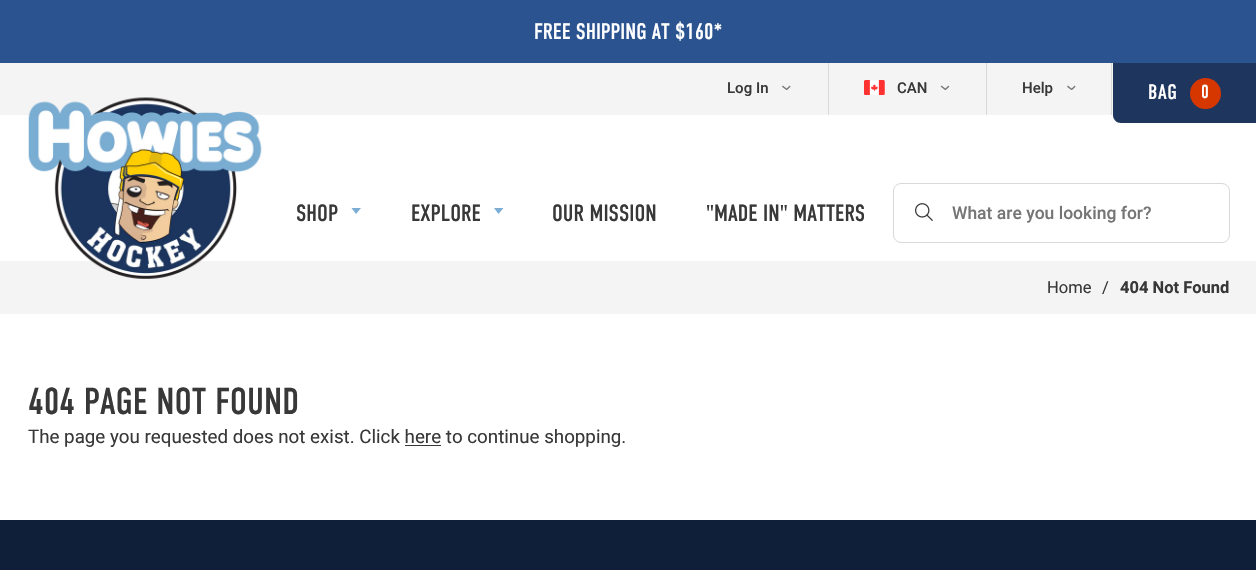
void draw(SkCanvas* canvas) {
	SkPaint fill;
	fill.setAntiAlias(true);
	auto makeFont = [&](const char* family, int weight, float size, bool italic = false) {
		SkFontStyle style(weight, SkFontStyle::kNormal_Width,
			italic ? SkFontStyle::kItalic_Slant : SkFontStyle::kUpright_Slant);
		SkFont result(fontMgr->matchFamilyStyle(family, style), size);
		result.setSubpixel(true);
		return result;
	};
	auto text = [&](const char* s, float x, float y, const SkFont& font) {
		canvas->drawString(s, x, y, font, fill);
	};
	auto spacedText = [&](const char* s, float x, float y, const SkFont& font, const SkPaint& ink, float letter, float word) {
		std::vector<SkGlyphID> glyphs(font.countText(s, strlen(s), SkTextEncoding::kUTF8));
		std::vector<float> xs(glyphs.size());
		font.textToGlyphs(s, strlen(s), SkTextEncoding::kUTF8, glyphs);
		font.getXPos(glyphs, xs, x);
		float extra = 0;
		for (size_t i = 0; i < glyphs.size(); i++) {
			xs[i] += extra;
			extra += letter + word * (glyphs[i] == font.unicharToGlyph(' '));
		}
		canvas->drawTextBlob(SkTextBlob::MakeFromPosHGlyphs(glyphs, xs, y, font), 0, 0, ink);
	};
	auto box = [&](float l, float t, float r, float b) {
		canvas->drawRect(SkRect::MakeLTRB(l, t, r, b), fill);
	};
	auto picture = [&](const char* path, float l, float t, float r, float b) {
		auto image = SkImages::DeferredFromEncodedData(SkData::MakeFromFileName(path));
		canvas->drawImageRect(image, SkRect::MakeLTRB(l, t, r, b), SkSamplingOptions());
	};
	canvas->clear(0xFFFFFFFF);
	fill.setColor(0xFF2A5390);
	box(0, 0, 1256, 63);
	fill.setColor(0xFFF4F4F4);
	box(0, 63, 1113, 115);
	fill.setColor(0xFFD9D9D9);
	box(828, 63, 829, 115);
	picture("image0.png", 782, 85, 791, 90);
	box(986, 63, 987, 115);
	picture("image1.png", 864, 80, 885, 95);
	picture("image2.png", 940, 85, 950, 90);
	box(1111, 63, 1112, 115);
	picture("image0.png", 1067, 85, 1076, 90);
	fill.setColor(0xFF1E355E);
	canvas->drawPath(SkPathBuilder().moveTo(1113, 63).lineTo(1256, 63).lineTo(1256, 123).lineTo(1121, 123).cubicTo(1116.5f, 123, 1113, 119.5f, 1113, 115).close().detach(), fill);
	fill.setColor(0xFFD63600);
	canvas->drawCircle(1205.5f, 93.5f, 15.5f, fill);
	fill.setColor(0xFFF4F4F4);
	box(0, 261, 1256, 314);
	picture("image3.png", 28, 97, 262, 279);
	fill.setColor(0xFF7CAED5);
	canvas->drawPath(SkPathBuilder(SkPathFillType::kEvenOdd).moveTo(356, 214).lineTo(361, 208).lineTo(351.5f, 208).close().detach(), fill);
	canvas->drawPath(SkPathBuilder(SkPathFillType::kEvenOdd).moveTo(498.5f, 214).lineTo(503.5f, 208).lineTo(494, 208).close().detach(), fill);
	fill.setStyle(SkPaint::kStroke_Style);
	fill.setStrokeWidth(1);
	fill.setColor(0xFFD9D9D9);
	canvas->drawRoundRect(SkRect::MakeLTRB(893.5f, 183.5f, 1229.5f, 242.5f), 7.5f, 7.5f, fill);
	picture("image4.png", 915, 203, 933, 221);
	fill.setStyle(SkPaint::kFill_Style);
	fill.setColor(0xFF383838);
	box(405, 445, 441, 446);
	fill.setColor(0xFF0F1F3A);
	box(0, 520, 1256, 570);
	auto font1 = makeFont("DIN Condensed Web", 400, 22.5f);
	fill.setColor(0xFFFFFFFF);
	text("FREE SHIPPING AT $160*", 534, 39, font1);
	auto font2 = makeFont("Roboto", 500, 15);
	fill.setColor(0xFF383838);
	text("Log In", 727, 93, font2);
	text("CAN", 897, 93, font2);
	text("Help", 1022, 93, font2);
	auto font3 = makeFont("DIN Condensed Web", 400, 21);
	fill.setColor(0xFFFFFFFF);
	spacedText("BAG", 1148, 99, font3, fill, 0.5f, 0);
	auto font4 = makeFont("DIN Condensed Web", 400, 18.75f);
	spacedText("0", 1201, 98, font4, fill, 0.5f, 0);
	auto font5 = makeFont("DIN Condensed Web", 400, 23.5f);
	fill.setColor(0xFF383838);
	text("SHOP", 296, 221, font5);
	text("EXPLORE", 411, 221, font5);
	text("OUR MISSION", 552, 221, font5);
	text("\"MADE IN\" MATTERS", 706, 221, font5);
	auto font6 = makeFont("Roboto", 500, 17.5f);
	fill.setColor(0xFF757575);
	text("What are you looking for?", 952, 219, font6);
	auto font7 = makeFont("Roboto", 400, 16.5f);
	fill.setColor(0xFF383838);
	text("Home", 1047, 293, font7);
	text("/", 1102, 293, font7);
	auto font8 = makeFont("Roboto", 700, 16.5f);
	text("404 Not Found", 1120, 293, font8);
	auto font9 = makeFont("DIN Condensed Web", 400, 37.5f);
	text("404 PAGE NOT FOUND", 28, 414, font9);
	auto font10 = makeFont("Roboto", 400, 18.75f);
	text("The page you requested does not exist. Click here to continue shopping.", 28, 443, font10);
}
